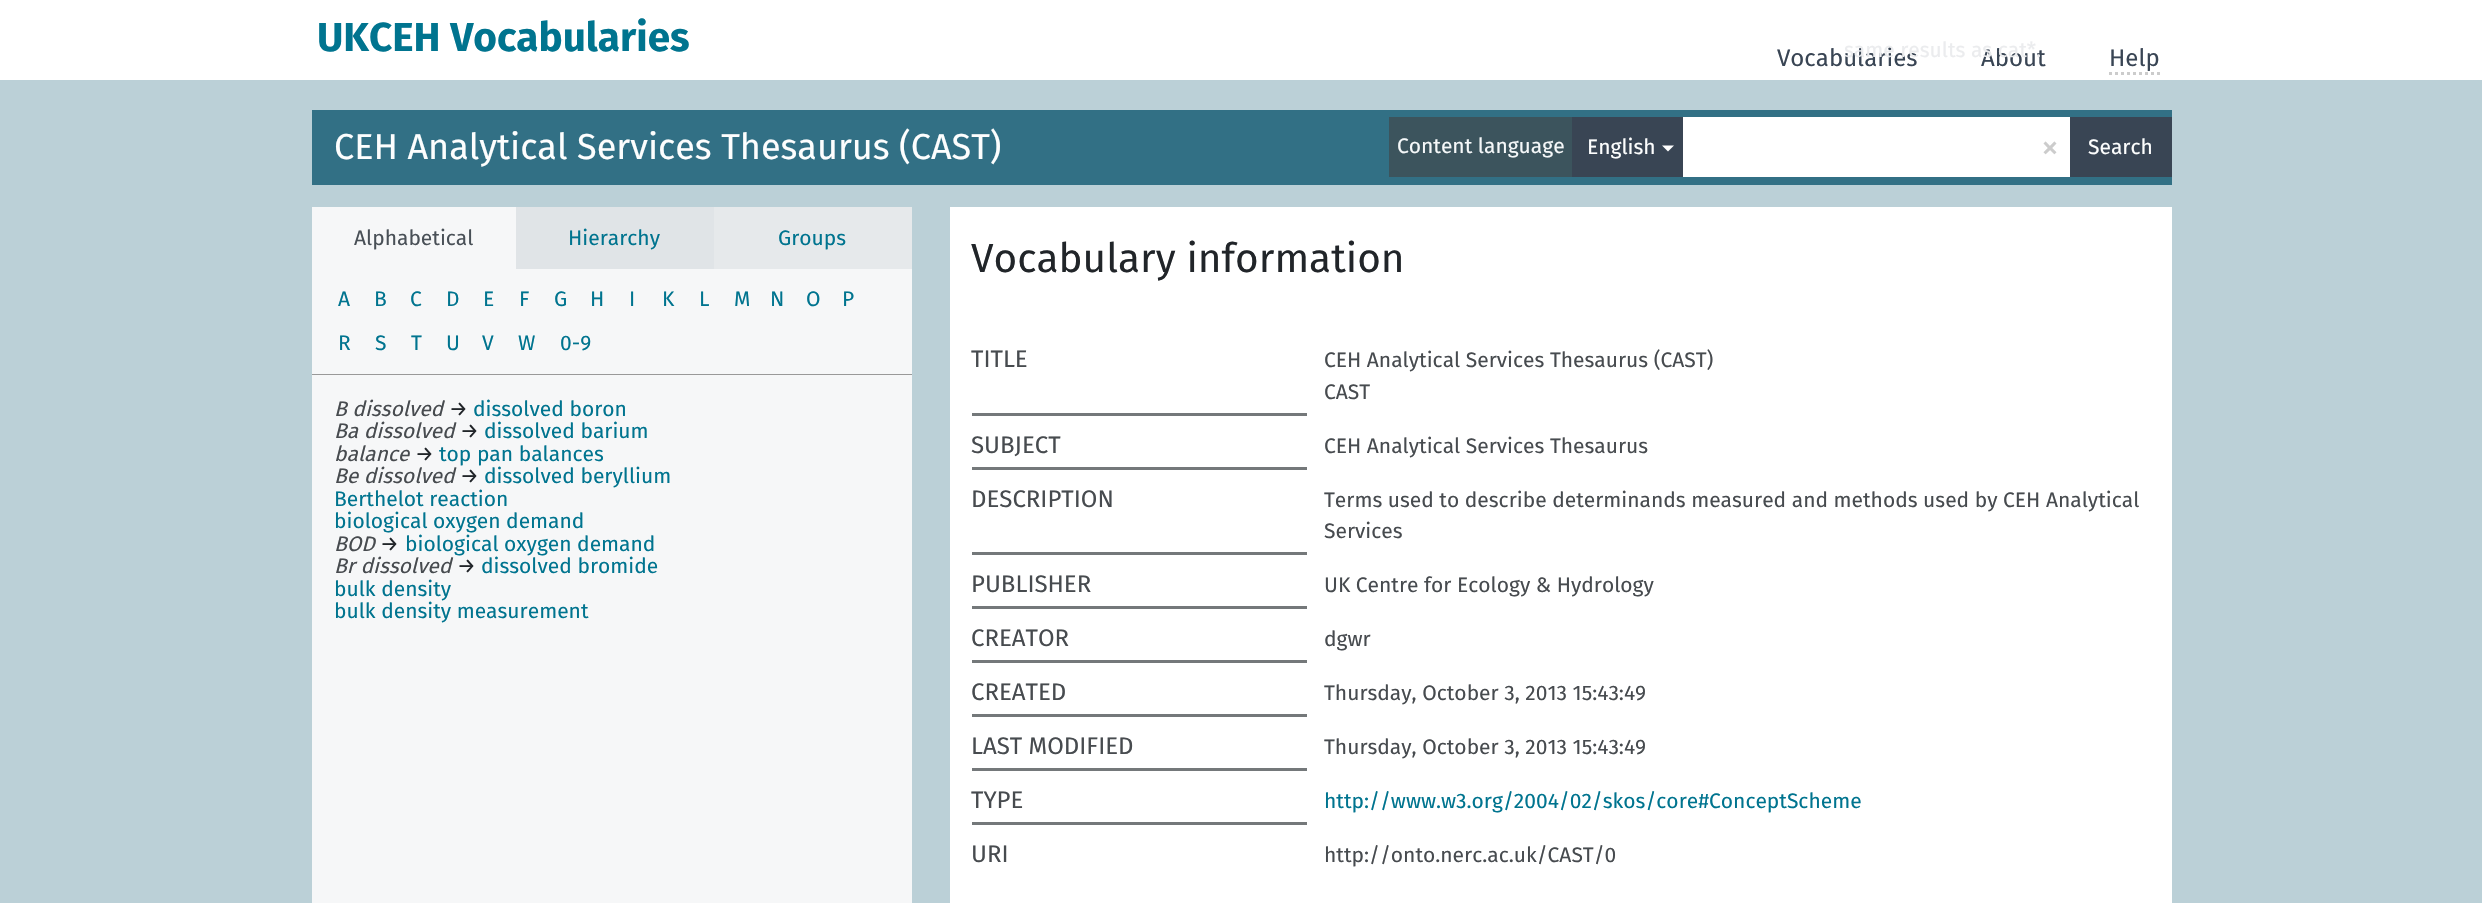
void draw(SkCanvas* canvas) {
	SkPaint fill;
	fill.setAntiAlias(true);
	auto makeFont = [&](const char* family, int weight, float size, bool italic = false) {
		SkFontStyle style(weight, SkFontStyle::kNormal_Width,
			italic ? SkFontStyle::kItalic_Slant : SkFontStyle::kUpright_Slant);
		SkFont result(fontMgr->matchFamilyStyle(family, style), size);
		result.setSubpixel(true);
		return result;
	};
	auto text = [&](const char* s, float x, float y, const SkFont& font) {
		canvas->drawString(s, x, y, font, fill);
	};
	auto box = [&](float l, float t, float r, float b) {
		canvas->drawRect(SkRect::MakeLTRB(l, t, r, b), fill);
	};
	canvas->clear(0xFFBBD0D7);
	fill.setColor(0xFFFFFFFF);
	box(0, 0, 2482, 80);
	fill.setStyle(SkPaint::kStroke_Style);
	fill.setStrokeWidth(3);
	fill.setColor(0xFFCCCCCC);
	fill.setPathEffect(SkDashPathEffect::Make({{3, 3}}, 0));
	canvas->drawPath(SkPathBuilder().moveTo(2109, 73.5f).lineTo(2160, 73.5f).detach(), fill);
	fill.setPathEffect(nullptr);
	fill.setStyle(SkPaint::kFill_Style);
	fill.setColor(0xFF327085);
	box(312, 110, 2172, 185);
	fill.setColor(0xFF3C545D);
	box(1389, 117, 1572, 177);
	fill.setColor(0xFF394554);
	box(1572, 117, 1683, 177);
	fill.setColor(0xFFFFFFFF);
	canvas->drawPath(SkPathBuilder().moveTo(1662, 145.5f).lineTo(1674, 145.5f).lineTo(1668, 151.5f).close().detach(), fill);
	box(1683, 117, 2070, 177);
	fill.setColor(0xFF394554);
	box(2070, 117, 2172, 177);
	fill.setColor(0xFFE0E4E7);
	box(516, 207, 714, 269);
	fill.setColor(0xFFF6F7F8);
	box(312, 207, 516, 269);
	fill.setColor(0xFFE6E9EB);
	box(714, 207, 912, 269);
	fill.setColor(0xFFF6F7F8);
	box(312, 269, 912, 374);
	fill.setColor(0xFF999999);
	box(312, 374, 912, 375);
	fill.setColor(0xFFF6F7F8);
	box(312, 375, 912, 903);
	fill.setColor(0xFFFFFFFF);
	box(950, 207, 2172, 903);
	fill.setColor(0xFF74787A);
	box(972, 413, 1307, 416);
	box(972, 467, 1307, 470);
	box(972, 552, 1307, 555);
	box(972, 606, 1307, 609);
	box(972, 660, 1307, 663);
	box(972, 714, 1307, 717);
	box(972, 768, 1307, 771);
	box(972, 822, 1307, 825);
	auto font1 = makeFont("Fira Sans", 700, 40.5f);
	fill.setColor(0xFF00748F);
	text("UKCEH Vocabularies", 317, 51, font1);
	auto font2 = makeFont("Fira Sans", 400, 24);
	fill.setColor(0xFF394554);
	text("Help", 2109, 66, font2);
	text("Vocabularies", 1777, 66, font2);
	text("About", 1981, 66, font2);
	auto font3 = makeFont("Fira Sans", 400, 21);
	fill.setColor(0xFFEBECEE);
	text("same results as cat*.", 1844, 57, font3);
	auto font4 = makeFont("Fira Sans", 400, 36);
	fill.setColor(0xFFFDFEFE);
	text("CEH Analytical Services Thesaurus (CAST)", 334, 159, font4);
	fill.setColor(0xFFF5F8F9);
	text("Content language", 1397, 153, font3);
	fill.setColor(0xFFFDFEFE);
	text("English", 1587, 154, font3);
	fill.setColor(0xFFCCCCCC);
	text("×", 2041, 159, font4);
	fill.setColor(0xFFFDFEFE);
	text("Search", 2088, 154, font3);
	fill.setColor(0xFF495057);
	text("Alphabetical", 354, 245, font3);
	fill.setColor(0xFF00748F);
	text("Hierarchy", 568, 245, font3);
	text("Groups", 778, 245, font3);
	text("A", 338, 306, font3);
	text("B", 374, 306, font3);
	text("C", 410, 306, font3);
	text("D", 446, 306, font3);
	text("E", 483, 306, font3);
	text("F", 519, 306, font3);
	text("G", 554, 306, font3);
	text("H", 590, 306, font3);
	text("I", 629, 306, font3);
	text("K", 662, 306, font3);
	text("L", 699, 306, font3);
	text("M", 734, 306, font3);
	text("N", 770, 306, font3);
	text("O", 806, 306, font3);
	text("P", 842, 306, font3);
	text("R", 338, 350, font3);
	text("S", 375, 350, font3);
	text("T", 411, 350, font3);
	text("U", 446, 350, font3);
	text("V", 482, 350, font3);
	text("W", 518, 350, font3);
	text("0-9", 560, 350, font3);
	auto font5 = makeFont("Fira Sans", 400, 21, true);
	fill.setColor(0xFF474B4F);
	text("B dissolved", 334, 416, font5);
	fill.setColor(0xFF212529);
	text("→", 449, 416, font3);
	fill.setColor(0xFF00748F);
	text("dissolved boron", 473, 416, font3);
	fill.setColor(0xFF474B4F);
	text("Ba dissolved", 334, 438, font5);
	fill.setColor(0xFF212529);
	text("→", 460, 438, font3);
	fill.setColor(0xFF00748F);
	text("dissolved barium", 484, 438, font3);
	fill.setColor(0xFF474B4F);
	text("balance", 334, 461, font5);
	fill.setColor(0xFF212529);
	text("→", 415, 461, font3);
	fill.setColor(0xFF00748F);
	text("top pan balances", 439, 461, font3);
	fill.setColor(0xFF474B4F);
	text("Be dissolved", 334, 483, font5);
	fill.setColor(0xFF212529);
	text("→", 460, 483, font3);
	fill.setColor(0xFF00748F);
	text("dissolved beryllium", 484, 483, font3);
	text("Berthelot reaction", 334, 506, font3);
	text("biological oxygen demand", 334, 528, font3);
	fill.setColor(0xFF474B4F);
	text("BOD", 334, 551, font5);
	fill.setColor(0xFF212529);
	text("→", 380, 551, font3);
	fill.setColor(0xFF00748F);
	text("biological oxygen demand", 405, 551, font3);
	fill.setColor(0xFF474B4F);
	text("Br dissolved", 334, 573, font5);
	fill.setColor(0xFF212529);
	text("→", 457, 573, font3);
	fill.setColor(0xFF00748F);
	text("dissolved bromide", 481, 573, font3);
	text("bulk density", 334, 596, font3);
	text("bulk density measurement", 334, 618, font3);
	auto font6 = makeFont("Fira Sans", 400, 40.5f);
	fill.setColor(0xFF212529);
	text("Vocabulary information", 971, 272, font6);
	fill.setColor(0xFF474B4F);
	text("TITLE", 971, 367, font2);
	text("CEH Analytical Services Thesaurus (CAST)", 1324, 367, font3);
	text("CAST", 1324, 399, font3);
	text("SUBJECT", 971, 453, font2);
	text("CEH Analytical Services Thesaurus", 1324, 453, font3);
	text("DESCRIPTION", 971, 507, font2);
	text("Terms used to describe determinands measured and methods used by CEH Analytical", 1324, 507, font3);
	text("Services", 1324, 538, font3);
	text("PUBLISHER", 971, 592, font2);
	text("UK Centre for Ecology & Hydrology", 1324, 592, font3);
	text("CREATOR", 971, 646, font2);
	text("dgwr", 1324, 646, font3);
	text("CREATED", 971, 700, font2);
	text("Thursday, October 3, 2013 15:43:49", 1324, 700, font3);
	text("LAST MODIFIED", 971, 754, font2);
	text("Thursday, October 3, 2013 15:43:49", 1324, 754, font3);
	text("TYPE", 971, 808, font2);
	fill.setColor(0xFF00748F);
	text("http://www.w3.org/2004/02/skos/core#ConceptScheme", 1324, 808, font3);
	fill.setColor(0xFF474B4F);
	text("URI", 971, 862, font2);
	text("http://onto.nerc.ac.uk/CAST/0", 1324, 862, font3);
}
